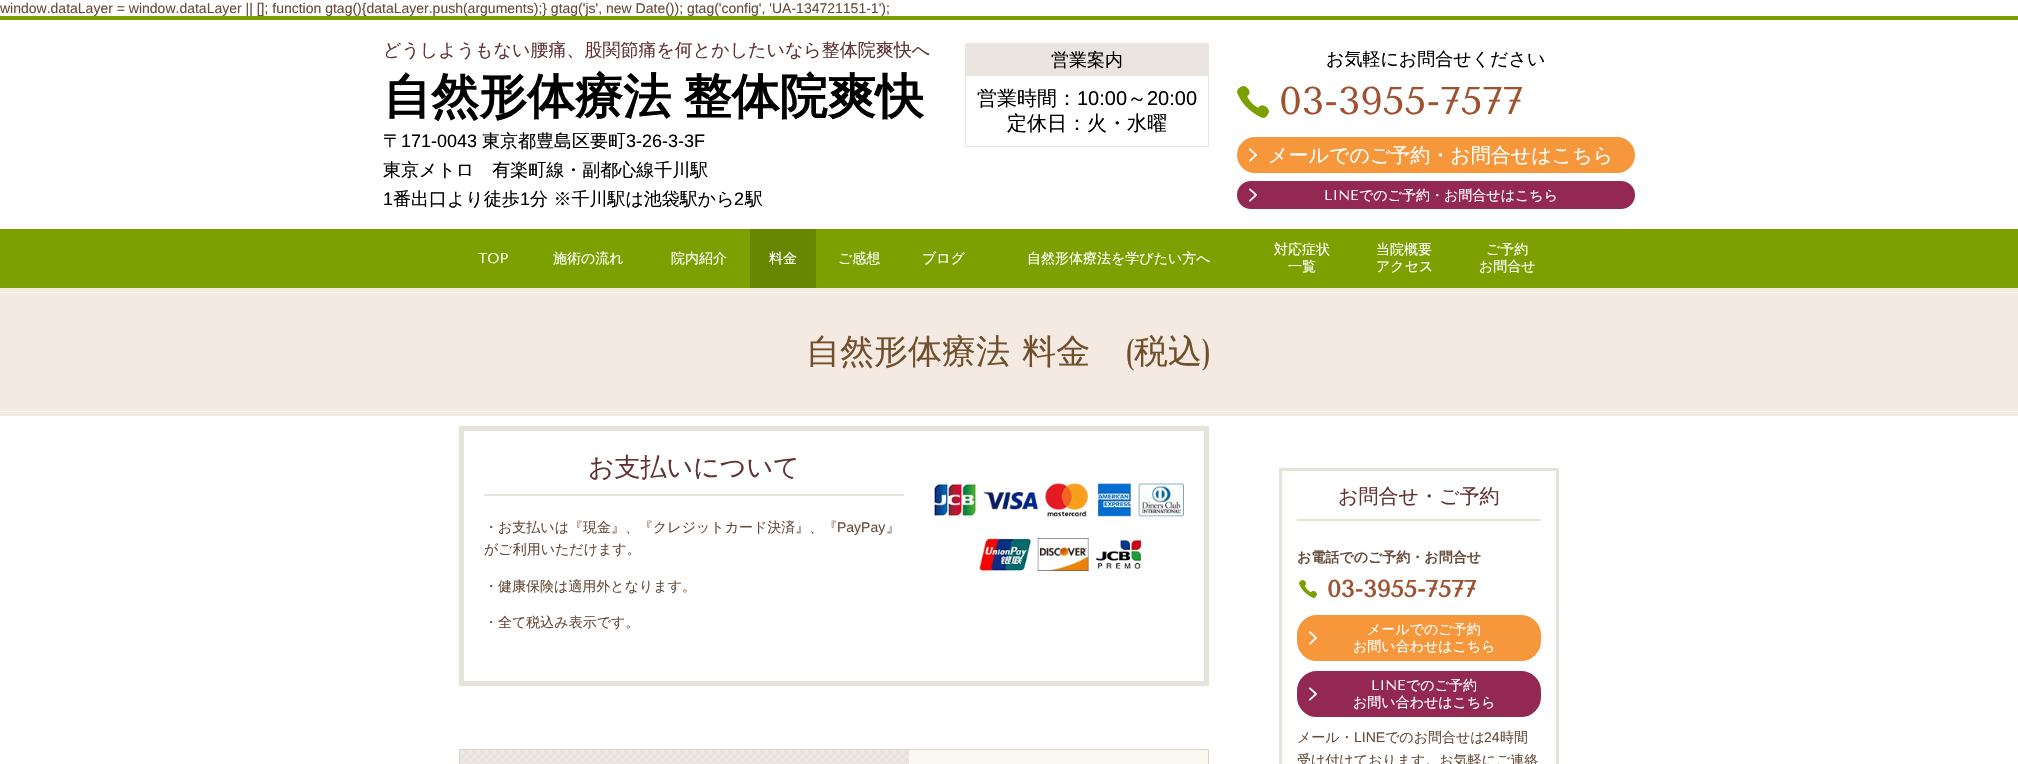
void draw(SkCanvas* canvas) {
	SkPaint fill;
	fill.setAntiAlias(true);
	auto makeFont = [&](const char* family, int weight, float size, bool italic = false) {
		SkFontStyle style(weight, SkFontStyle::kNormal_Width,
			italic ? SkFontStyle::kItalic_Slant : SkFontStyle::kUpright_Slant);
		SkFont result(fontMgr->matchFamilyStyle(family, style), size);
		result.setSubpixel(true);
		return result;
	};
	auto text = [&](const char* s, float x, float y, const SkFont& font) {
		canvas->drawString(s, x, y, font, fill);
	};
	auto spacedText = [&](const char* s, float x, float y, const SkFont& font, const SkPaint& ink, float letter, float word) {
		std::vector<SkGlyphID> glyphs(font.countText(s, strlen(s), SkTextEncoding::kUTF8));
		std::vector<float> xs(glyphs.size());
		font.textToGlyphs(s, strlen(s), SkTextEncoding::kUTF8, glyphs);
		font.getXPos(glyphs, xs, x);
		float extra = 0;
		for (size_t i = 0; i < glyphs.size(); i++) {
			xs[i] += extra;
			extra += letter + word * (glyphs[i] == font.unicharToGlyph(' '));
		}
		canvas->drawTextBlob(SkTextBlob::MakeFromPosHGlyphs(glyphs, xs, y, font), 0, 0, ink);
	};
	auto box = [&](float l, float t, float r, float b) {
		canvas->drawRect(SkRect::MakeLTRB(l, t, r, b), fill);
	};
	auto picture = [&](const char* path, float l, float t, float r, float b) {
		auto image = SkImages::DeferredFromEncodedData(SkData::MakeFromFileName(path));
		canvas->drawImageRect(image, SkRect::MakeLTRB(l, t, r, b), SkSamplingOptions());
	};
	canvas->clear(0xFFFFFFFF);
	fill.setColor(0xFF7CA000);
	box(0, 16, 2018, 20);
	fill.setStyle(SkPaint::kStroke_Style);
	fill.setStrokeWidth(1);
	fill.setColor(0xFFEBE5E2);
	canvas->drawRect(SkRect::MakeLTRB(965.5f, 43.5f, 1208.5f, 146.5f), fill);
	fill.setStyle(SkPaint::kFill_Style);
	box(966, 44, 1208, 76);
	picture("image0.png", 1237, 86, 1269, 118);
	fill.setColor(0xFFF6973C);
	canvas->drawRoundRect(SkRect::MakeLTRB(1238, 138, 1634, 172), 17, 17, fill);
	fill.setStyle(SkPaint::kStroke_Style);
	fill.setStrokeWidth(2);
	canvas->drawRoundRect(SkRect::MakeLTRB(1238, 138, 1634, 172), 17, 17, fill);
	picture("image1.png", 1249, 148, 1257, 162);
	fill.setStyle(SkPaint::kFill_Style);
	fill.setColor(0xFF932853);
	canvas->drawRoundRect(SkRect::MakeLTRB(1238, 182, 1634, 208), 13, 13, fill);
	fill.setStyle(SkPaint::kStroke_Style);
	canvas->drawRoundRect(SkRect::MakeLTRB(1238, 182, 1634, 208), 13, 13, fill);
	picture("image2.png", 1249, 188, 1257, 202);
	fill.setStyle(SkPaint::kFill_Style);
	fill.setColor(0xFF7CA000);
	box(0, 229, 2018, 288);
	fill.setColor(0xFF688700);
	box(750, 229, 816, 288);
	fill.setColor(0xFFF4EAE2);
	box(0, 293, 2018, 411);
	box(0, 288, 2018, 292);
	box(0, 412, 2018, 416);
	fill.setStyle(SkPaint::kStroke_Style);
	fill.setStrokeWidth(5);
	fill.setColor(0xFFE6E3DB);
	canvas->drawRect(SkRect::MakeLTRB(461.5f, 428.5f, 1206.5f, 683.5f), fill);
	fill.setStyle(SkPaint::kFill_Style);
	box(484, 494, 904, 496);
	picture("image3.png", 934, 483, 1184, 572);
	fill.setColor(0xFFDCD4C9);
	box(459, 749, 1209, 750);
	box(1208, 749, 1209, 764);
	box(459, 749, 460, 764);
	picture("image4.png", 460, 750, 909, 764);
	fill.setColor(0xFFFBF8F2);
	box(909, 750, 1208, 764);
	fill.setStyle(SkPaint::kStroke_Style);
	fill.setStrokeWidth(3);
	fill.setColor(0xFFE6E3DB);
	canvas->drawRect(SkRect::MakeLTRB(1280.5f, 469.5f, 1557.5f, 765.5f), fill);
	fill.setStyle(SkPaint::kFill_Style);
	box(1297, 519, 1541, 521);
	picture("image5.png", 1299, 580, 1317, 598);
	fill.setColor(0xFFF6973C);
	canvas->drawRoundRect(SkRect::MakeLTRB(1298, 616, 1540, 660), 19, 19, fill);
	fill.setStyle(SkPaint::kStroke_Style);
	fill.setStrokeWidth(2);
	canvas->drawRoundRect(SkRect::MakeLTRB(1298, 616, 1540, 660), 19, 19, fill);
	picture("image1.png", 1309, 631, 1317, 645);
	fill.setStyle(SkPaint::kFill_Style);
	fill.setColor(0xFF932853);
	canvas->drawRoundRect(SkRect::MakeLTRB(1298, 672, 1540, 716), 19, 19, fill);
	fill.setStyle(SkPaint::kStroke_Style);
	canvas->drawRoundRect(SkRect::MakeLTRB(1298, 672, 1540, 716), 19, 19, fill);
	picture("image2.png", 1309, 687, 1317, 701);
	auto font1 = makeFont("Liberation Sans", 400, 14);
	fill.setStyle(SkPaint::kFill_Style);
	fill.setColor(0xFF664B3A);
	text("window.dataLayer = window.dataLayer || []; function gtag(){dataLayer.push(arguments);} gtag('js', new Date()); gtag('config', 'UA-134721151-1');", 0, 13, font1);
	auto font2 = makeFont("WenQuanYi Zen Hei", 500, 18);
	fill.setColor(0xFF623334);
	text("どうしようもない腰痛、股関節痛を何とかしたいなら整体院爽快へ", 383, 56, font2);
	auto font3 = makeFont("WenQuanYi Zen Hei", 700, 48);
	fill.setColor(0xFF000000);
	spacedText("自然形体療法 整体院爽快", 383, 113, font3, fill, 0, -2);
	text("〒", 383, 147, font2);
	auto font4 = makeFont("Liberation Sans", 400, 18);
	text("171-0043", 401, 147, font4);
	text("東京都豊島区要町", 482, 147, font2);
	text("3-26-3-3F", 626, 147, font4);
	text("東京メトロ　有楽町線・副都心線千川駅", 383, 176, font2);
	text("1", 383, 205, font4);
	text("番出口より徒歩", 393, 205, font2);
	text("1", 520, 205, font4);
	text("分 ※千川駅は池袋駅から", 530, 205, font2);
	text("2", 734, 205, font4);
	text("駅", 745, 205, font2);
	text("営業案内", 1051, 66, font2);
	auto font5 = makeFont("WenQuanYi Zen Hei", 500, 20);
	text("営業時間：", 977, 105, font5);
	auto font6 = makeFont("Liberation Sans", 400, 20);
	text("10:00", 1077, 105, font6);
	text("～", 1127, 105, font5);
	text("20:00", 1147, 105, font6);
	text("定休日：火・水曜", 1007, 130, font5);
	text("お気軽にお問合せください", 1326, 65, font2);
	auto font7 = makeFont("Tenor Sans", 400, 38.5f);
	fill.setColor(0xFF9F522F);
	text("03-3955-7577", 1279, 114, font7);
	fill.setColor(0xFFFFFFFF);
	text("メールでのご予約・お問合せはこちら", 1268, 162, font5);
	auto font8 = makeFont("Tenor Sans", 400, 14);
	text("LINE", 1324, 200, font8);
	auto font9 = makeFont("WenQuanYi Zen Hei", 500, 14);
	text("でのご予約・お問合せはこちら", 1359, 200, font9);
	text("TOP", 478, 263, font8);
	text("施術の流れ", 553, 263, font9);
	text("院内紹介", 671, 263, font9);
	text("料金", 769, 263, font9);
	text("ご感想", 838, 263, font9);
	text("ブログ", 922, 263, font9);
	text("自然形体療法を学びたい方へ", 1027, 263, font9);
	text("対応症状", 1274, 254, font9);
	text("一覧", 1288, 271, font9);
	text("当院概要", 1376, 254, font9);
	text("アクセス", 1376, 271, font9);
	text("ご予約", 1486, 254, font9);
	text("お問合せ", 1479, 271, font9);
	auto font10 = makeFont("WenQuanYi Zen Hei", 500, 34);
	fill.setColor(0xFF714F2D);
	spacedText("自然形体療法 料金", 806, 363, font10, fill, 0, 2);
	auto font11 = makeFont("Tenor Sans", 400, 34);
	text("(", 1124, 363, font11);
	text("税込", 1134, 363, font10);
	text(")", 1202, 363, font11);
	auto font12 = makeFont("WenQuanYi Zen Hei", 500, 26);
	fill.setColor(0xFF623334);
	text("お支払いについて", 588, 476, font12);
	fill.setColor(0xFF664B3A);
	text("・お支払いは『現金』、『クレジットカード決済』、『", 484, 532, font9);
	text("PayPay", 837, 532, font1);
	text("』", 886, 532, font9);
	text("がご利用いただけます。", 484, 554, font9);
	text("・健康保険は適用外となります。", 484, 591, font9);
	text("・全て税込み表示です。", 484, 627, font9);
	fill.setColor(0xFF623334);
	text("お問合せ・ご予約", 1338, 503, font5);
	auto font13 = makeFont("WenQuanYi Zen Hei", 700, 14);
	fill.setColor(0xFF664B3A);
	text("お電話でのご予約・お問合せ", 1297, 562, font13);
	auto font14 = makeFont("Tenor Sans", 700, 23.5f);
	fill.setColor(0xFF9F522F);
	text("03-3955-7577", 1327, 597, font14);
	fill.setColor(0xFFFFFFFF);
	text("メールでのご予約", 1367, 634, font9);
	text("お問い合わせはこちら", 1353, 651, font9);
	text("LINE", 1371, 690, font8);
	text("でのご予約", 1406, 690, font9);
	text("お問い合わせはこちら", 1353, 707, font9);
	fill.setColor(0xFF664B3A);
	text("メール・", 1297, 742, font9);
	text("LINE", 1354, 742, font1);
	text("でのお問合せは", 1385, 742, font9);
	text("24", 1484, 742, font1);
	text("時間", 1500, 742, font9);
	text("受け付けております。お気軽にご連絡", 1297, 765, font9);
}
